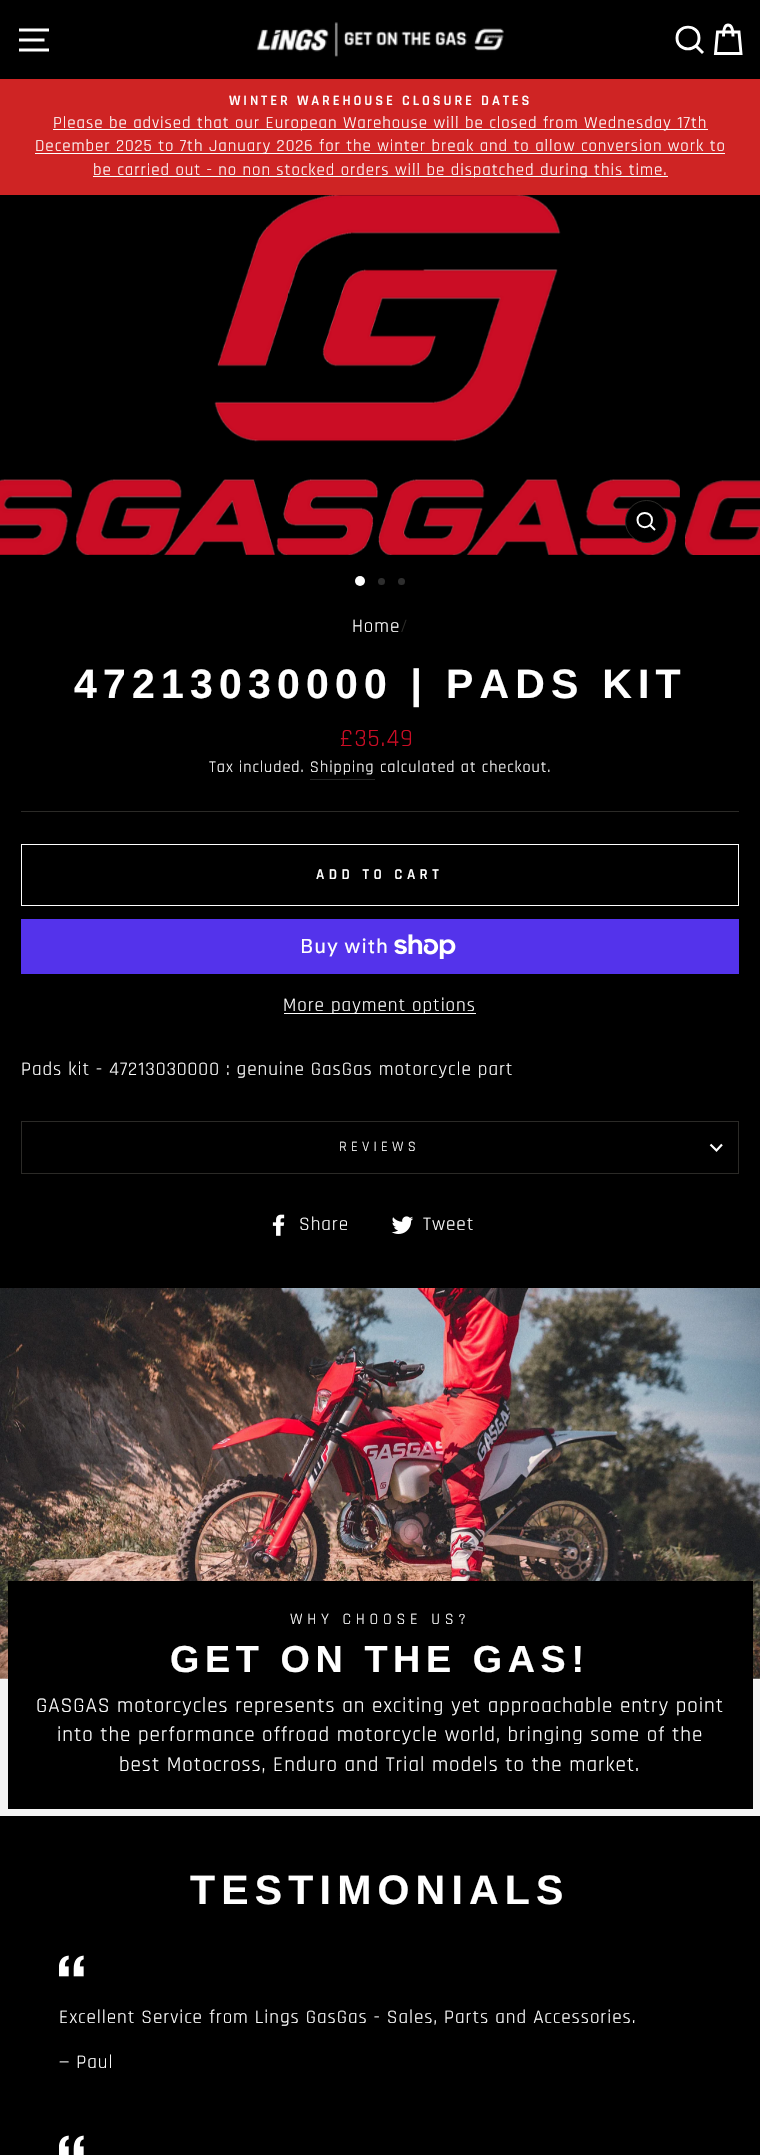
void draw(SkCanvas* canvas) {
	SkPaint fill;
	fill.setAntiAlias(true);
	auto makeFont = [&](const char* family, int weight, float size, bool italic = false) {
		SkFontStyle style(weight, SkFontStyle::kNormal_Width,
			italic ? SkFontStyle::kItalic_Slant : SkFontStyle::kUpright_Slant);
		SkFont result(fontMgr->matchFamilyStyle(family, style), size);
		result.setSubpixel(true);
		return result;
	};
	auto spacedText = [&](const char* s, float x, float y, const SkFont& font, const SkPaint& ink, float letter, float word) {
		std::vector<SkGlyphID> glyphs(font.countText(s, strlen(s), SkTextEncoding::kUTF8));
		std::vector<float> xs(glyphs.size());
		font.textToGlyphs(s, strlen(s), SkTextEncoding::kUTF8, glyphs);
		font.getXPos(glyphs, xs, x);
		float extra = 0;
		for (size_t i = 0; i < glyphs.size(); i++) {
			xs[i] += extra;
			extra += letter + word * (glyphs[i] == font.unicharToGlyph(' '));
		}
		canvas->drawTextBlob(SkTextBlob::MakeFromPosHGlyphs(glyphs, xs, y, font), 0, 0, ink);
	};
	auto box = [&](float l, float t, float r, float b) {
		canvas->drawRect(SkRect::MakeLTRB(l, t, r, b), fill);
	};
	auto picture = [&](const char* path, float l, float t, float r, float b) {
		auto image = SkImages::DeferredFromEncodedData(SkData::MakeFromFileName(path));
		canvas->drawImageRect(image, SkRect::MakeLTRB(l, t, r, b), SkSamplingOptions());
	};
	canvas->clear(0xFF000000);
	fill.setStyle(SkPaint::kStroke_Style);
	fill.setStrokeWidth(2.9f);
	fill.setColor(0xFFFFFFFF);
	canvas->drawPath(SkPathBuilder().moveTo(19, 30).lineTo(49, 30).moveTo(19, 40).lineTo(44.5f, 40).moveTo(19, 50).lineTo(49, 50).detach(), fill);
	picture("image0.png", 256, 22, 504, 57);
	canvas->drawPath(SkPathBuilder().moveTo(699, 38).cubicTo(699, 52.5f, 677, 52.5f, 677, 38).cubicTo(677, 23.5f, 699, 23.5f, 699, 38).close().moveTo(703, 53).lineTo(696, 46).moveTo(723.5f, 36.5f).cubicTo(723.5f, 27, 725.5f, 25, 728, 25).cubicTo(730.5f, 25, 733, 27, 733, 36.5f).detach(), fill);
	canvas->drawPath(SkPathBuilder().moveTo(717.5f, 32).lineTo(739, 32).lineTo(741, 53.5f).lineTo(715.5f, 53.5f).close().detach(), fill);
	fill.setStyle(SkPaint::kFill_Style);
	fill.setColor(0xFFCF2424);
	box(0, 79, 760, 195);
	fill.setColor(0xFFFFFFFF);
	box(53, 129, 708, 130);
	box(35, 153, 725, 154);
	box(93, 176, 668, 177);
	picture("image1.png", 0, 479, 72, 555);
	picture("image2.png", 76, 195, 680, 555);
	fill.setColor(0xFF000000);
	canvas->drawCircle(646.5f, 521.5f, 21, fill);
	fill.setStyle(SkPaint::kStroke_Style);
	fill.setStrokeWidth(1);
	fill.setColor(0xFF2B2A27);
	canvas->drawCircle(646.5f, 521.5f, 21, fill);
	fill.setStrokeWidth(2);
	fill.setColor(0xFFFFFFFF);
	canvas->drawPath(SkPathBuilder().moveTo(652, 520).cubicTo(652, 529.5f, 637.5f, 529.5f, 637.5f, 520).cubicTo(637.5f, 510.5f, 652, 510.5f, 652, 520).close().moveTo(655, 530).lineTo(650, 525).detach(), fill);
	picture("image3.png", 685, 480, 760, 555);
	fill.setStyle(SkPaint::kFill_Style);
	canvas->drawCircle(360, 581, 5, fill);
	fill.setColor(0xFF2E2E2E);
	canvas->drawCircle(381.5f, 581.5f, 3.5f, fill);
	canvas->drawCircle(401.5f, 581.5f, 3.5f, fill);
	fill.setColor(0xFF262626);
	box(310, 779, 375, 780);
	fill.setColor(0xFF2B2A27);
	box(21, 811, 739, 812);
	fill.setStyle(SkPaint::kStroke_Style);
	fill.setStrokeWidth(1);
	fill.setColor(0xFFFFFFFF);
	canvas->drawRect(SkRect::MakeLTRB(21.5f, 844.5f, 738.5f, 905.5f), fill);
	fill.setStyle(SkPaint::kFill_Style);
	fill.setColor(0xFF5433EB);
	box(21, 919, 739, 974);
	picture("image4.png", 394, 934, 456, 959);
	fill.setColor(0xFFFFFFFF);
	box(284, 1013, 476, 1014);
	fill.setColor(0xFF2B2A27);
	box(21, 1173, 739, 1174);
	box(21, 1121, 739, 1122);
	box(738, 1121, 739, 1173);
	box(21, 1121, 22, 1173);
	fill.setStyle(SkPaint::kStroke_Style);
	fill.setStrokeWidth(2.2f);
	fill.setColor(0xFFFFFFFF);
	canvas->drawPath(SkPathBuilder().moveTo(710.5f, 1144.5f).lineTo(716.5f, 1150.5f).lineTo(722, 1144.5f).detach(), fill);
	picture("image5.png", 272, 1214, 285, 1236);
	picture("image6.png", 391, 1216, 414, 1234);
	fill.setStyle(SkPaint::kFill_Style);
	fill.setColor(0xFFF4F4F4);
	box(0, 1678, 760, 1816);
	picture("image7.png", 0, 1288, 760, 1679);
	fill.setColor(0xFF000000);
	box(8, 1581, 753, 1809);
	picture("image8.png", 59, 1955, 84, 1977);
	picture("image9.png", 59, 2135, 84, 2155);
	auto font1 = makeFont("Rajdhani", 600, 14.3f);
	fill.setColor(0xFFFFFFFF);
	spacedText("WINTER WAREHOUSE CLOSURE DATES", 229, 105, font1, fill, 2.9f, 0);
	auto font2 = makeFont("Rajdhani", 400, 16.9f);
	spacedText("Please be advised that our European Warehouse will be closed from Wednesday 17th", 53, 128, font2, fill, 0.95f, 0);
	spacedText("December 2025 to 7th January 2026 for the winter break and to allow conversion work to", 35, 151, font2, fill, 0.95f, 0);
	spacedText("be carried out - no non stocked orders will be dispatched during this time.", 93, 175, font2, fill, 0.95f, 0);
	auto font3 = makeFont("Rajdhani", 400, 19.1f);
	spacedText("Home", 352, 632, font3, fill, 0.95f, 0);
	fill.setColor(0xFF2B2A27);
	spacedText("/", 400, 632, font3, fill, 0.95f, 0);
	auto font4 = makeFont("Liberation Sans", 700, 41);
	fill.setColor(0xFFFFFFFF);
	spacedText("47213030000 | PADS KIT", 74, 698, font4, fill, 6.2f, 0);
	auto font5 = makeFont("Rajdhani", 400, 25);
	fill.setColor(0xFFCB0D25);
	spacedText("£35.49", 340, 746, font5, fill, 0.95f, 0);
	auto font6 = makeFont("Rajdhani", 400, 16.25f);
	fill.setColor(0xFFFFFFFF);
	spacedText("Tax included. Shipping", 209, 772, font6, fill, 0.95f, 0);
	spacedText("calculated at checkout.", 380, 772, font6, fill, 0.95f, 0);
	auto font7 = makeFont("Rajdhani", 600, 15);
	spacedText("ADD TO CART", 316, 879, font7, fill, 4.5f, 0);
	auto font8 = makeFont("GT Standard", 400, 20);
	spacedText("Buy with", 300, 953, font8, fill, 0.95f, 0);
	spacedText("More payment options", 283, 1011, font3, fill, 0.95f, 0);
	spacedText("Pads kit - 47213030000 : genuine GasGas motorcycle part", 21, 1075, font3, fill, 0.95f, 0);
	auto font9 = makeFont("Rajdhani", 400, 14.3f);
	spacedText("REVIEWS", 339, 1151, font9, fill, 4.25f, 0);
	spacedText("Share", 299, 1230, font3, fill, 0.95f, 0);
	spacedText("Tweet", 423, 1230, font3, fill, 0.95f, 0);
	auto font10 = makeFont("Rajdhani", 400, 15.75f);
	spacedText("WHY CHOOSE US?", 290, 1624, font10, fill, 4.75f, 0);
	auto font11 = makeFont("Liberation Sans", 700, 37.75f);
	spacedText("GET ON THE GAS!", 170, 1672, font11, fill, 5.6f, 0);
	auto font12 = makeFont("Rajdhani", 400, 21.05f);
	spacedText("GASGAS motorcycles represents an exciting yet approachable entry point", 36, 1712, font12, fill, 0.95f, 0);
	spacedText("into the performance offroad motorcycle world, bringing some of the", 57, 1741, font12, fill, 0.95f, 0);
	spacedText("best Motocross, Enduro and Trial models to the market.", 119, 1771, font12, fill, 0.95f, 0);
	spacedText("TESTIMONIALS", 190, 1904, font4, fill, 6.2f, 0);
	spacedText("Excellent Service from Lings GasGas - Sales, Parts and Accessories.", 59, 2023, font3, fill, 0.95f, 0);
	spacedText("— Paul", 59, 2068, font3, fill, 0.95f, 0);
}
